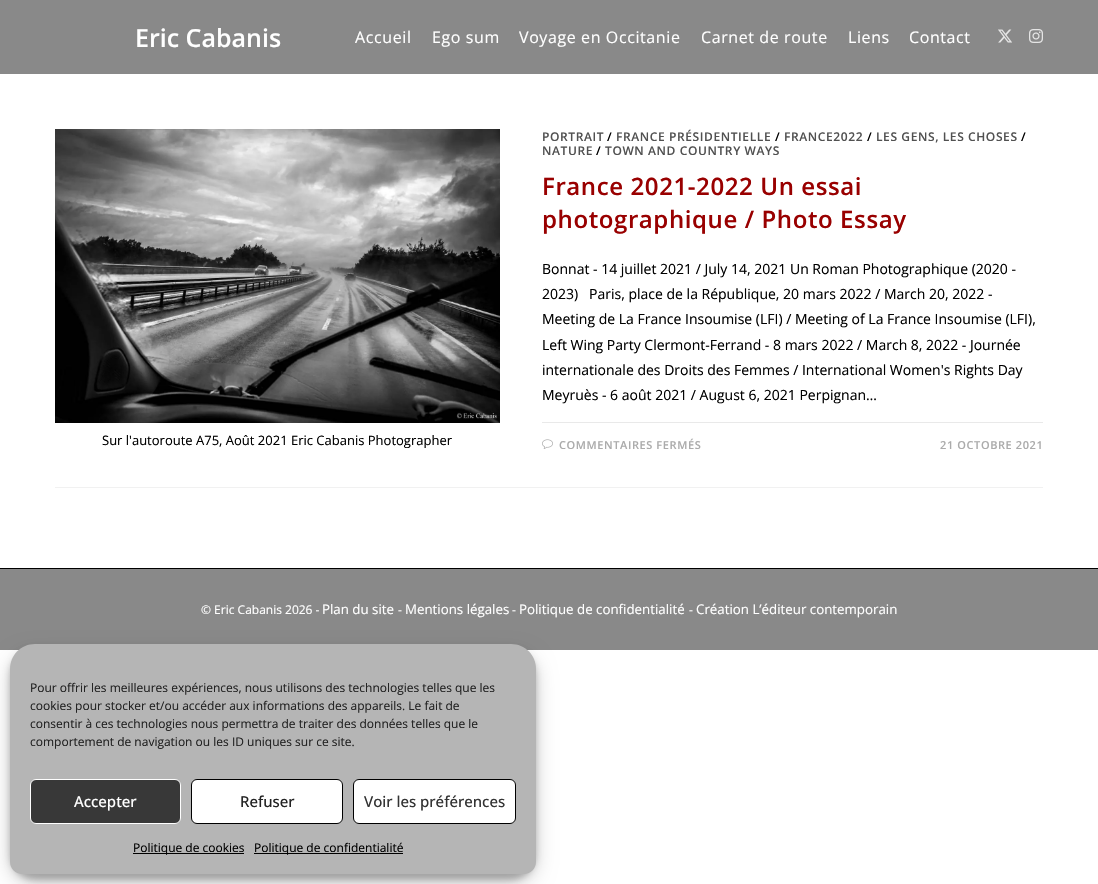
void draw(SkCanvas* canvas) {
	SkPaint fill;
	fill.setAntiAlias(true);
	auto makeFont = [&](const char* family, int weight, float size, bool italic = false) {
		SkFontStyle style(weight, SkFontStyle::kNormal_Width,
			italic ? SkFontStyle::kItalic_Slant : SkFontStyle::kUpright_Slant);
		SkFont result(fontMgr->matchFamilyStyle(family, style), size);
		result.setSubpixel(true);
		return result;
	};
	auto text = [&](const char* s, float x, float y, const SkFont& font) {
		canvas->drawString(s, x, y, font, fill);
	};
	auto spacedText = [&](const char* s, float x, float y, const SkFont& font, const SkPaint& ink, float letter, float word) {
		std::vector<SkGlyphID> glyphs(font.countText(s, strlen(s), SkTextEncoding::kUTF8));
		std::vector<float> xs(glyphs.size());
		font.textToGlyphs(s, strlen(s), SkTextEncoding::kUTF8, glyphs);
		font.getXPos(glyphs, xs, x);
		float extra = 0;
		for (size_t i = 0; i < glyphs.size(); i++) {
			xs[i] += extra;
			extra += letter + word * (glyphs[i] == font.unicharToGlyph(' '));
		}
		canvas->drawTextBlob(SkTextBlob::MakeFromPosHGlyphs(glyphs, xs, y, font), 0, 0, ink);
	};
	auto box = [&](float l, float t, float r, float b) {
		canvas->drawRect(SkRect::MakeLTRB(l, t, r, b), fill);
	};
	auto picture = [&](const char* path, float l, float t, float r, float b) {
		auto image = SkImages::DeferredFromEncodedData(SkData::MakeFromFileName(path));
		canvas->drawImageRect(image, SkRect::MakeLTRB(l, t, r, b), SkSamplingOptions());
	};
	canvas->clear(0xFFFFFFFF);
	fill.setColor(0xFF898989);
	box(0, 0, 1098, 74);
	picture("image0.png", 998, 29, 1012, 43);
	picture("image1.png", 1029, 29, 1043, 43);
	fill.setColor(0xFFF1F1F1);
	box(55, 487, 1043, 488);
	picture("image2.png", 55, 129, 500, 423);
	fill.setColor(0xFFE9E9E9);
	box(542, 422, 1043, 423);
	picture("image3.png", 542, 439, 553, 449);
	fill.setColor(0xFF000000);
	box(0, 568, 1098, 569);
	fill.setColor(0xFF898989);
	box(0, 569, 1098, 650);
	fill.setColor(0x3B000000);
	fill.setMaskFilter(SkMaskFilter::MakeBlur(kNormal_SkBlurStyle, 3));
	canvas->drawRoundRect(SkRect::MakeLTRB(10, 650, 536, 880), 25, 25, fill);
	fill.setMaskFilter(nullptr);
	fill.setColor(0x30000000);
	fill.setMaskFilter(SkMaskFilter::MakeBlur(kNormal_SkBlurStyle, 10));
	canvas->drawRoundRect(SkRect::MakeLTRB(10, 654, 536, 884), 25, 25, fill);
	fill.setMaskFilter(nullptr);
	fill.setColor(0xFFB5B5B5);
	canvas->drawPath(SkPathBuilder().moveTo(35, 644).lineTo(511, 644).cubicTo(525, 644, 536, 655, 536, 669).lineTo(536, 862).cubicTo(536, 868.5f, 530.5f, 874, 524, 874).lineTo(22, 874).cubicTo(15.5f, 874, 10, 868.5f, 10, 862).lineTo(10, 669).cubicTo(10, 655, 21, 644, 35, 644).close().detach(), fill);
	fill.setColor(0xFF383838);
	canvas->drawRoundRect(SkRect::MakeLTRB(30.5f, 779.5f, 180.5f, 823.5f), 5.5f, 5.5f, fill);
	fill.setStyle(SkPaint::kStroke_Style);
	fill.setStrokeWidth(1);
	fill.setColor(0xFFFFFFFF);
	canvas->drawRoundRect(SkRect::MakeLTRB(30.5f, 779.5f, 180.5f, 823.5f), 5.5f, 5.5f, fill);
	fill.setStyle(SkPaint::kFill_Style);
	canvas->drawRoundRect(SkRect::MakeLTRB(191.5f, 779.5f, 342.5f, 823.5f), 5.5f, 5.5f, fill);
	fill.setStyle(SkPaint::kStroke_Style);
	fill.setColor(0xFF000000);
	canvas->drawRoundRect(SkRect::MakeLTRB(191.5f, 779.5f, 342.5f, 823.5f), 5.5f, 5.5f, fill);
	fill.setStyle(SkPaint::kFill_Style);
	fill.setColor(0xFFFFFFFF);
	canvas->drawRoundRect(SkRect::MakeLTRB(353.5f, 779.5f, 515.5f, 823.5f), 5.5f, 5.5f, fill);
	fill.setStyle(SkPaint::kStroke_Style);
	fill.setColor(0xFF000000);
	canvas->drawRoundRect(SkRect::MakeLTRB(353.5f, 779.5f, 515.5f, 823.5f), 5.5f, 5.5f, fill);
	fill.setStyle(SkPaint::kFill_Style);
	box(133, 853, 244, 854);
	box(254, 853, 403, 854);
	auto font1 = makeFont("Open Sans", 600, 25);
	fill.setColor(0xFFFFFFFF);
	text("Eric Cabanis", 135, 47, font1);
	auto font2 = makeFont("Open Sans", 400, 16);
	spacedText("Accueil", 355, 43, font2, fill, 0.6f, 0);
	spacedText("Ego sum", 432, 43, font2, fill, 0.6f, 0);
	spacedText("Voyage en Occitanie", 519, 43, font2, fill, 0.6f, 0);
	spacedText("Carnet de route", 701, 43, font2, fill, 0.6f, 0);
	spacedText("Liens", 848, 43, font2, fill, 0.6f, 0);
	spacedText("Contact", 909, 43, font2, fill, 0.6f, 0);
	auto font3 = makeFont("Open Sans", 400, 13);
	fill.setColor(0xFF000000);
	text("Sur l'autoroute A75, Août 2021 Eric Cabanis Photographer", 102, 445, font3);
	auto font4 = makeFont("Open Sans", 600, 12);
	fill.setColor(0xFF515151);
	spacedText("PORTRAIT", 542, 141, font4, fill, 0.6f, 0);
	fill.setColor(0xFF000000);
	spacedText("/", 607, 141, font4, fill, 0.6f, 0);
	fill.setColor(0xFF515151);
	spacedText("FRANCE PRÉSIDENTIELLE", 616, 141, font4, fill, 0.6f, 0);
	fill.setColor(0xFF000000);
	spacedText("/", 775, 141, font4, fill, 0.6f, 0);
	fill.setColor(0xFF515151);
	spacedText("FRANCE2022", 784, 141, font4, fill, 0.6f, 0);
	fill.setColor(0xFF000000);
	spacedText("/", 867, 141, font4, fill, 0.6f, 0);
	fill.setColor(0xFF515151);
	spacedText("LES GENS, LES CHOSES", 876, 141, font4, fill, 0.6f, 0);
	fill.setColor(0xFF000000);
	spacedText("/", 1021, 141, font4, fill, 0.6f, 0);
	fill.setColor(0xFF515151);
	spacedText("NATURE", 542, 155, font4, fill, 0.6f, 0);
	fill.setColor(0xFF000000);
	spacedText("/", 596, 155, font4, fill, 0.6f, 0);
	fill.setColor(0xFF515151);
	spacedText("TOWN AND COUNTRY WAYS", 605, 155, font4, fill, 0.6f, 0);
	auto font5 = makeFont("Open Sans", 600, 24);
	fill.setColor(0xFF990000);
	spacedText("France 2021-2022 Un essai", 542, 195, font5, fill, 0.6f, 0);
	spacedText("photographique / Photo Essay", 542, 228, font5, fill, 0.6f, 0);
	auto font6 = makeFont("Open Sans", 400, 14);
	fill.setColor(0xFF000000);
	text("Bonnat - 14 juillet 2021 / July 14, 2021 Un Roman Photographique (2020 -", 542, 274, font6);
	text("2023)   Paris, place de la République, 20 mars 2022 / March 20, 2022 -", 542, 299, font6);
	text("Meeting de La France Insoumise (LFI) / Meeting of La France Insoumise (LFI),", 542, 324, font6);
	text("Left Wing Party Clermont-Ferrand - 8 mars 2022 / March 8, 2022 - Journée", 542, 350, font6);
	text("internationale des Droits des Femmes / International Women's Rights Day", 542, 375, font6);
	text("Meyruès - 6 août 2021 / August 6, 2021 Perpignan…", 542, 400, font6);
	auto font7 = makeFont("Open Sans", 600, 11);
	fill.setColor(0xFFABABAB);
	spacedText("COMMENTAIRES FERMÉS", 559, 449, font7, fill, 0.6f, 0);
	spacedText("21 OCTOBRE 2021", 940, 449, font7, fill, 0.6f, 0);
	auto font8 = makeFont("Open Sans", 400, 12);
	fill.setColor(0xFFFFFFFF);
	text("© Eric Cabanis 2026 -", 201, 614, font8);
	auto font9 = makeFont("Open Sans", 400, 13.3f);
	text("Plan du site", 322, 614, font9);
	text("-", 398, 614, font8);
	text("Mentions légales", 405, 614, font9);
	text("-", 512, 614, font8);
	text("Politique de confidentialité", 519, 614, font9);
	text("-", 689, 614, font8);
	text("Création L’éditeur contemporain", 696, 614, font9);
	fill.setColor(0xFF222222);
	text("Pour offrir les meilleures expériences, nous utilisons des technologies telles que les", 30, 692, font8);
	text("cookies pour stocker et/ou accéder aux informations des appareils. Le fait de", 30, 710, font8);
	text("consentir à ces technologies nous permettra de traiter des données telles que le", 30, 728, font8);
	text("comportement de navigation ou les ID uniques sur ce site.", 30, 746, font8);
	auto font10 = makeFont("Open Sans", 500, 15);
	fill.setColor(0xFFFFFFFF);
	text("Accepter", 74, 807, font10);
	fill.setColor(0xFF222222);
	text("Refuser", 240, 807, font10);
	fill.setColor(0xFF333333);
	text("Voir les préférences", 364, 807, font10);
	fill.setColor(0xFF000000);
	text("Politique de cookies", 133, 852, font8);
	text("Politique de confidentialité", 254, 852, font8);
}
